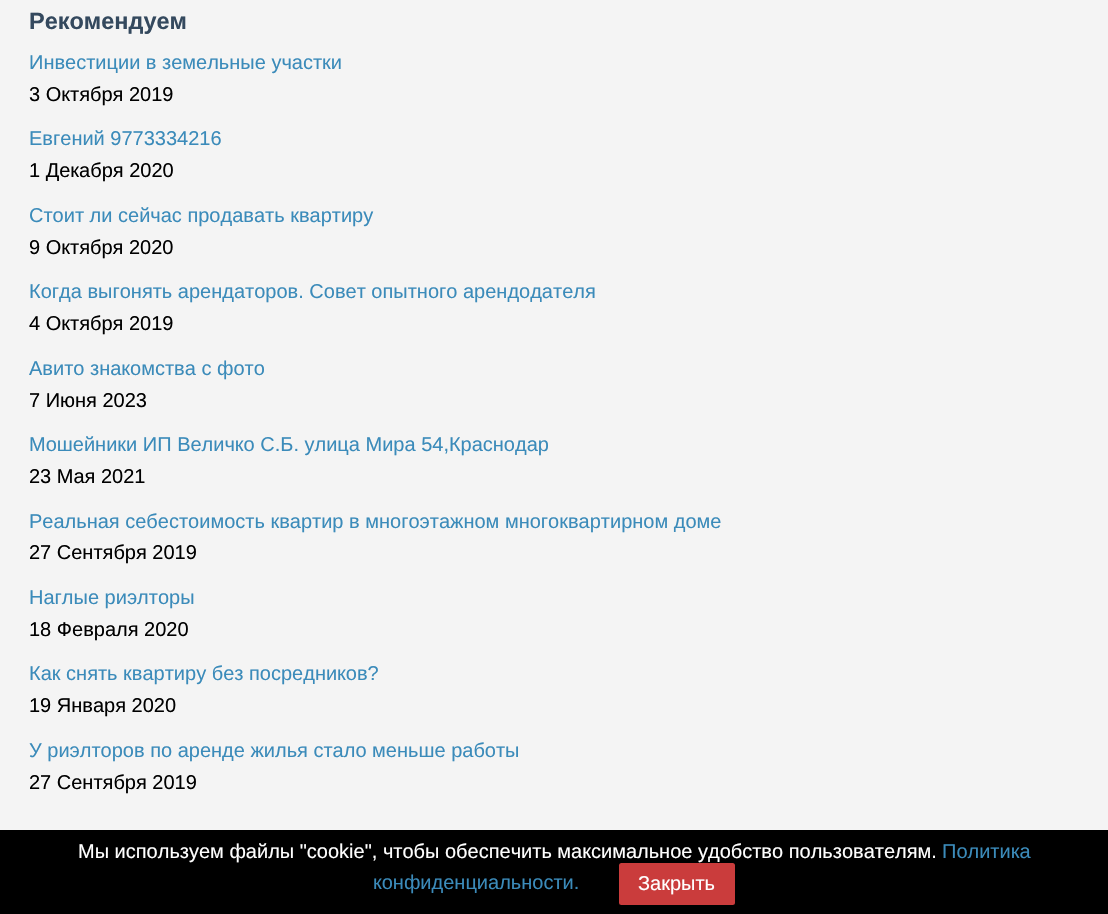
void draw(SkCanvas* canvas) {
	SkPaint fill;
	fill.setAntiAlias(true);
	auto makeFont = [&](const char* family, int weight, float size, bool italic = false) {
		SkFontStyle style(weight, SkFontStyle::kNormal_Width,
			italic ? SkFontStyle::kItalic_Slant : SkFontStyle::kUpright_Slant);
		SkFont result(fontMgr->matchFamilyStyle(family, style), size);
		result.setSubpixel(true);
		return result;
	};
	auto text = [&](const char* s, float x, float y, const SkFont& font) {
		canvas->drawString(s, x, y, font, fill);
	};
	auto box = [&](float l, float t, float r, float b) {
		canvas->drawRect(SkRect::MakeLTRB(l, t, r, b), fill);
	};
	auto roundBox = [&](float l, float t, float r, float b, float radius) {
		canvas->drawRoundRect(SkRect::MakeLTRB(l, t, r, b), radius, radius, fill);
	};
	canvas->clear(0xFFF4F4F4);
	fill.setColor(0xFF000000);
	box(0, 830, 1108, 914);
	fill.setColor(0xFFCA3C3C);
	roundBox(619, 863, 735, 905, 2.5f);
	auto font1 = makeFont("Liberation Sans", 700, 23.5f);
	fill.setColor(0xFF34495E);
	text("Рекомендуем", 29, 29, font1);
	auto font2 = makeFont("Liberation Sans", 400, 20);
	fill.setColor(0xFF3B8BBA);
	text("Инвестиции в земельные участки", 29, 69, font2);
	fill.setColor(0xFF000000);
	text("3 Октября 2019", 29, 101, font2);
	fill.setColor(0xFF3B8BBA);
	text("Евгений 9773334216", 29, 145, font2);
	fill.setColor(0xFF000000);
	text("1 Декабря 2020", 29, 177, font2);
	fill.setColor(0xFF3B8BBA);
	text("Стоит ли сейчас продавать квартиру", 29, 222, font2);
	fill.setColor(0xFF000000);
	text("9 Октября 2020", 29, 254, font2);
	fill.setColor(0xFF3B8BBA);
	text("Когда выгонять арендаторов. Совет опытного арендодателя", 29, 298, font2);
	fill.setColor(0xFF000000);
	text("4 Октября 2019", 29, 330, font2);
	fill.setColor(0xFF3B8BBA);
	text("Авито знакомства с фото", 29, 375, font2);
	fill.setColor(0xFF000000);
	text("7 Июня 2023", 29, 407, font2);
	fill.setColor(0xFF3B8BBA);
	text("Мошейники ИП Величко С.Б. улица Мира 54,Краснодар", 29, 451, font2);
	fill.setColor(0xFF000000);
	text("23 Мая 2021", 29, 483, font2);
	fill.setColor(0xFF3B8BBA);
	text("Реальная себестоимость квартир в многоэтажном многоквартирном доме", 29, 528, font2);
	fill.setColor(0xFF000000);
	text("27 Сентября 2019", 29, 559, font2);
	fill.setColor(0xFF3B8BBA);
	text("Наглые риэлторы", 29, 604, font2);
	fill.setColor(0xFF000000);
	text("18 Февраля 2020", 29, 636, font2);
	fill.setColor(0xFF3B8BBA);
	text("Как снять квартиру без посредников?", 29, 680, font2);
	fill.setColor(0xFF000000);
	text("19 Января 2020", 29, 712, font2);
	fill.setColor(0xFF3B8BBA);
	text("У риэлторов по аренде жилья стало меньше работы", 29, 757, font2);
	fill.setColor(0xFF000000);
	text("27 Сентября 2019", 29, 789, font2);
	fill.setColor(0xFFFFFFFF);
	text("Мы используем файлы \"cookie\", чтобы обеспечить максимальное удобство пользователям.", 78, 858, font2);
	fill.setColor(0xFF3B8BBA);
	text("Политика", 942, 858, font2);
	text("конфиденциальности.", 373, 889, font2);
	fill.setColor(0xFFFFFFFF);
	text("Закрыть", 638, 890, font2);
}
